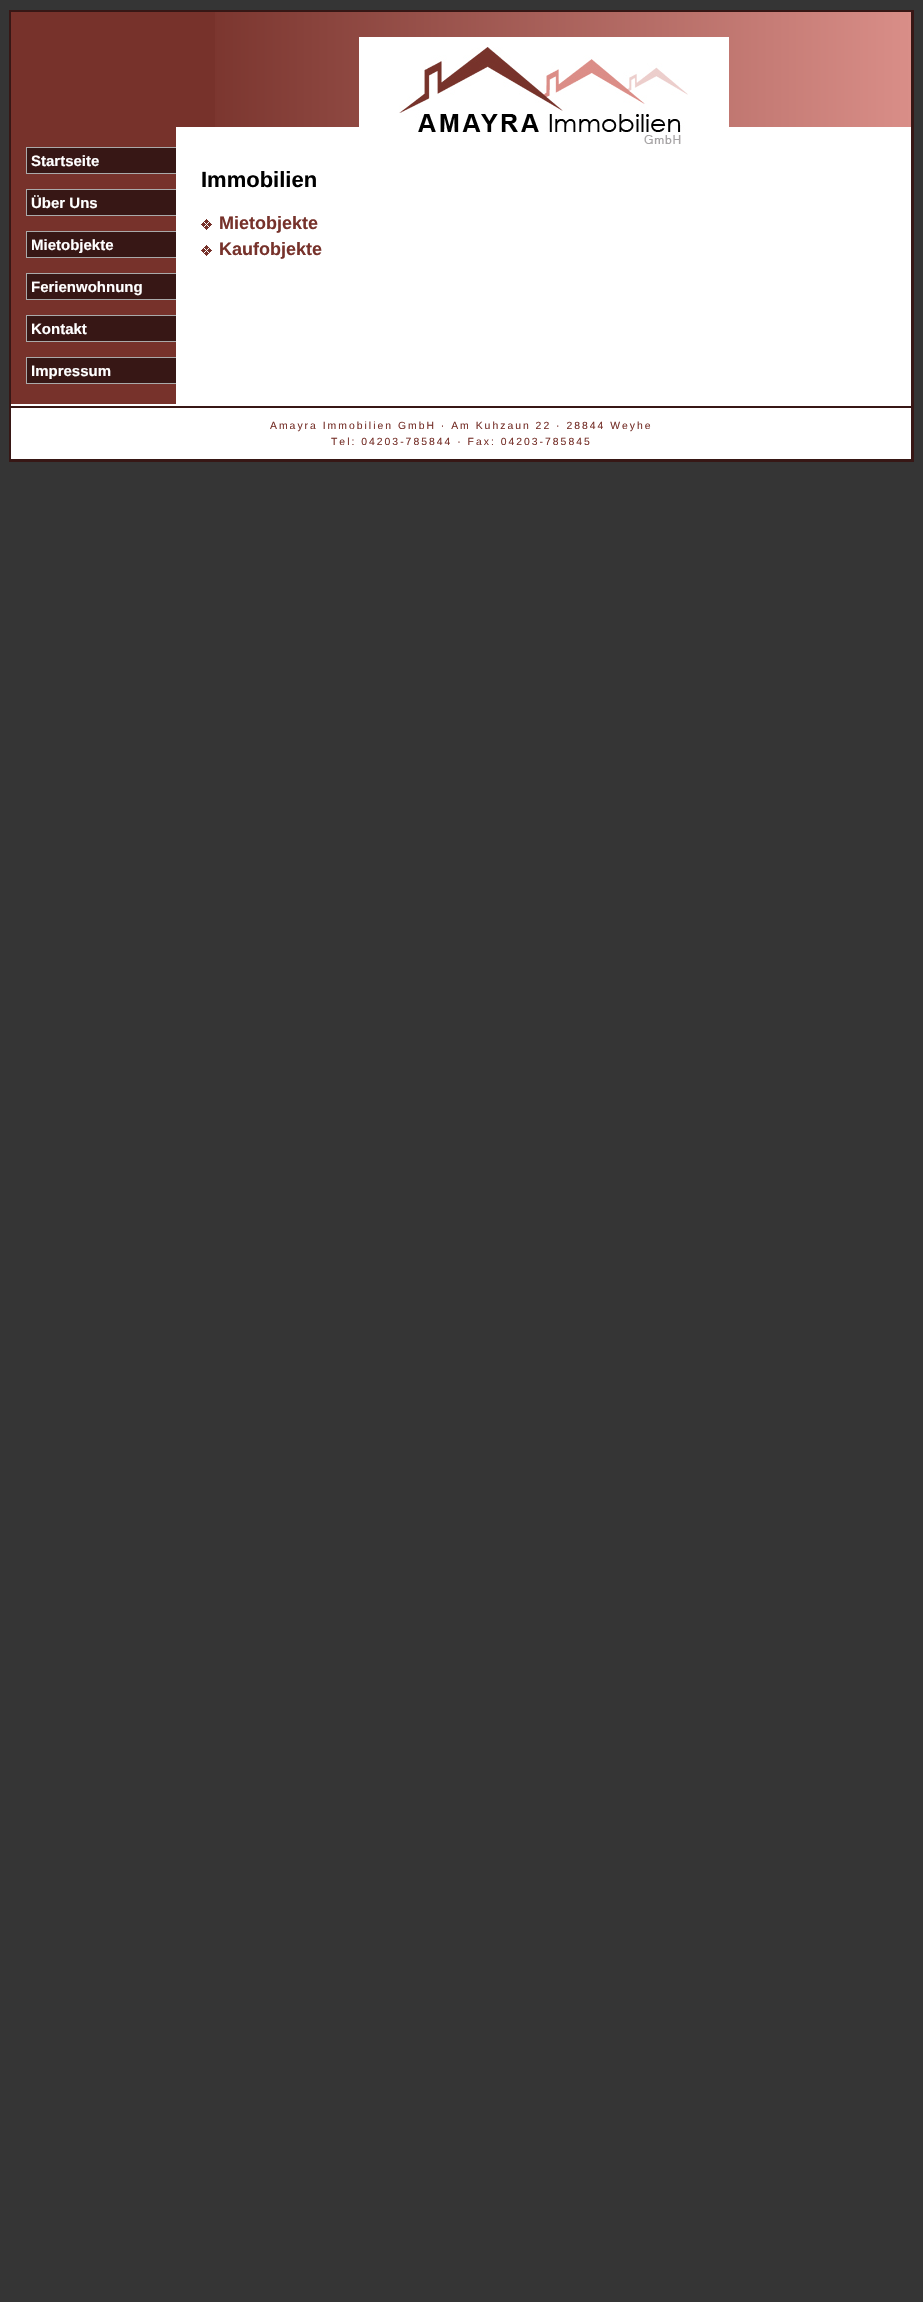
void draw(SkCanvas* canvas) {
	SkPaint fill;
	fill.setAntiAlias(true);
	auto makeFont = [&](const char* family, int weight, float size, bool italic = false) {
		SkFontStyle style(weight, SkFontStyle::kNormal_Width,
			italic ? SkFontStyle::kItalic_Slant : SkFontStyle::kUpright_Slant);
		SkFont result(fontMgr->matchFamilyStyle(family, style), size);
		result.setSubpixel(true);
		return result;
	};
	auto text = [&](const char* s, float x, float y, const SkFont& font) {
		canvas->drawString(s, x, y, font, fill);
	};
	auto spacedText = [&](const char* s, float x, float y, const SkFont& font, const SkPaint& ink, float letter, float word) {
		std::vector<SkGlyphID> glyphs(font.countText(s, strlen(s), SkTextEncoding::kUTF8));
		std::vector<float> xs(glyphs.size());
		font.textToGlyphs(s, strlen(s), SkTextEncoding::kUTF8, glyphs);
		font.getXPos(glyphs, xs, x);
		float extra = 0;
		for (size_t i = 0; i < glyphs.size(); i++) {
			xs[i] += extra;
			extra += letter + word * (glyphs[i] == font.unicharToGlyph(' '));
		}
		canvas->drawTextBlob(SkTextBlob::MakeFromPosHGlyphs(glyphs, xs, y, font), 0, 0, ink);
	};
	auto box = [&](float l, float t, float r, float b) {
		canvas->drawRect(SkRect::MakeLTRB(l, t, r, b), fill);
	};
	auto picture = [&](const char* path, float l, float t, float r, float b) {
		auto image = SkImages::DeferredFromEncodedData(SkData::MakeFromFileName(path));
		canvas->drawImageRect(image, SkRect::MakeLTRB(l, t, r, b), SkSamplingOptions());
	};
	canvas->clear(0xFF353535);
	fill.setColor(0xFFFFFFFF);
	box(11, 127, 911, 459);
	fill.setColor(0xFF371715);
	box(9, 10, 914, 12);
	box(911, 10, 914, 462);
	box(9, 459, 914, 462);
	box(9, 10, 11, 462);
	fill.setColor(0xFF77322B);
	box(11, 12, 215, 127);
	picture("image0.png", 215, 12, 911, 127);
	fill.setColor(0xFFFFFFFF);
	box(359, 37, 729, 127);
	picture("image1.png", 399, 47, 688, 144);
	fill.setColor(0xFF77322B);
	box(11, 127, 176, 404);
	fill.setColor(0xFF371715);
	box(27, 148, 176, 173);
	fill.setColor(0xFFAAAAAA);
	box(26, 147, 176, 148);
	box(26, 173, 176, 174);
	box(26, 147, 27, 174);
	fill.setColor(0xFF371715);
	box(27, 190, 176, 215);
	fill.setColor(0xFFAAAAAA);
	box(26, 189, 176, 190);
	box(26, 215, 176, 216);
	box(26, 189, 27, 216);
	fill.setColor(0xFF371715);
	box(27, 232, 176, 257);
	fill.setColor(0xFFAAAAAA);
	box(26, 231, 176, 232);
	box(26, 257, 176, 258);
	box(26, 231, 27, 258);
	fill.setColor(0xFF371715);
	box(27, 274, 176, 299);
	fill.setColor(0xFFAAAAAA);
	box(26, 273, 176, 274);
	box(26, 299, 176, 300);
	box(26, 273, 27, 300);
	fill.setColor(0xFF371715);
	box(27, 316, 176, 341);
	fill.setColor(0xFFAAAAAA);
	box(26, 315, 176, 316);
	box(26, 341, 176, 342);
	box(26, 315, 27, 342);
	fill.setColor(0xFF371715);
	box(27, 358, 176, 383);
	fill.setColor(0xFFAAAAAA);
	box(26, 357, 176, 358);
	box(26, 383, 176, 384);
	box(26, 357, 27, 384);
	picture("image2.png", 201, 219, 212, 230);
	picture("image2.png", 201, 245, 212, 256);
	fill.setColor(0xFF371715);
	box(11, 406, 911, 408);
	auto font1 = makeFont("Liberation Sans", 700, 15);
	fill.setColor(0xFFFFFFFF);
	text("Startseite", 31, 166, font1);
	text("Über Uns", 31, 208, font1);
	text("Mietobjekte", 31, 250, font1);
	text("Ferienwohnung", 31, 292, font1);
	text("Kontakt", 31, 334, font1);
	text("Impressum", 31, 376, font1);
	auto font2 = makeFont("Liberation Sans", 700, 22);
	fill.setColor(0xFF000000);
	text("Immobilien", 201, 187, font2);
	auto font3 = makeFont("Liberation Sans", 700, 18);
	fill.setColor(0xFF77322B);
	text("Mietobjekte", 219, 229, font3);
	text("Kaufobjekte", 219, 255, font3);
	auto font4 = makeFont("Liberation Sans", 400, 10.4f);
	spacedText("Amayra Immobilien GmbH · Am Kuhzaun 22 · 28844 Weyhe", 270, 429, font4, fill, 2, 0);
	spacedText("Tel: 04203-785844 · Fax: 04203-785845", 331, 445, font4, fill, 2, 0);
}
